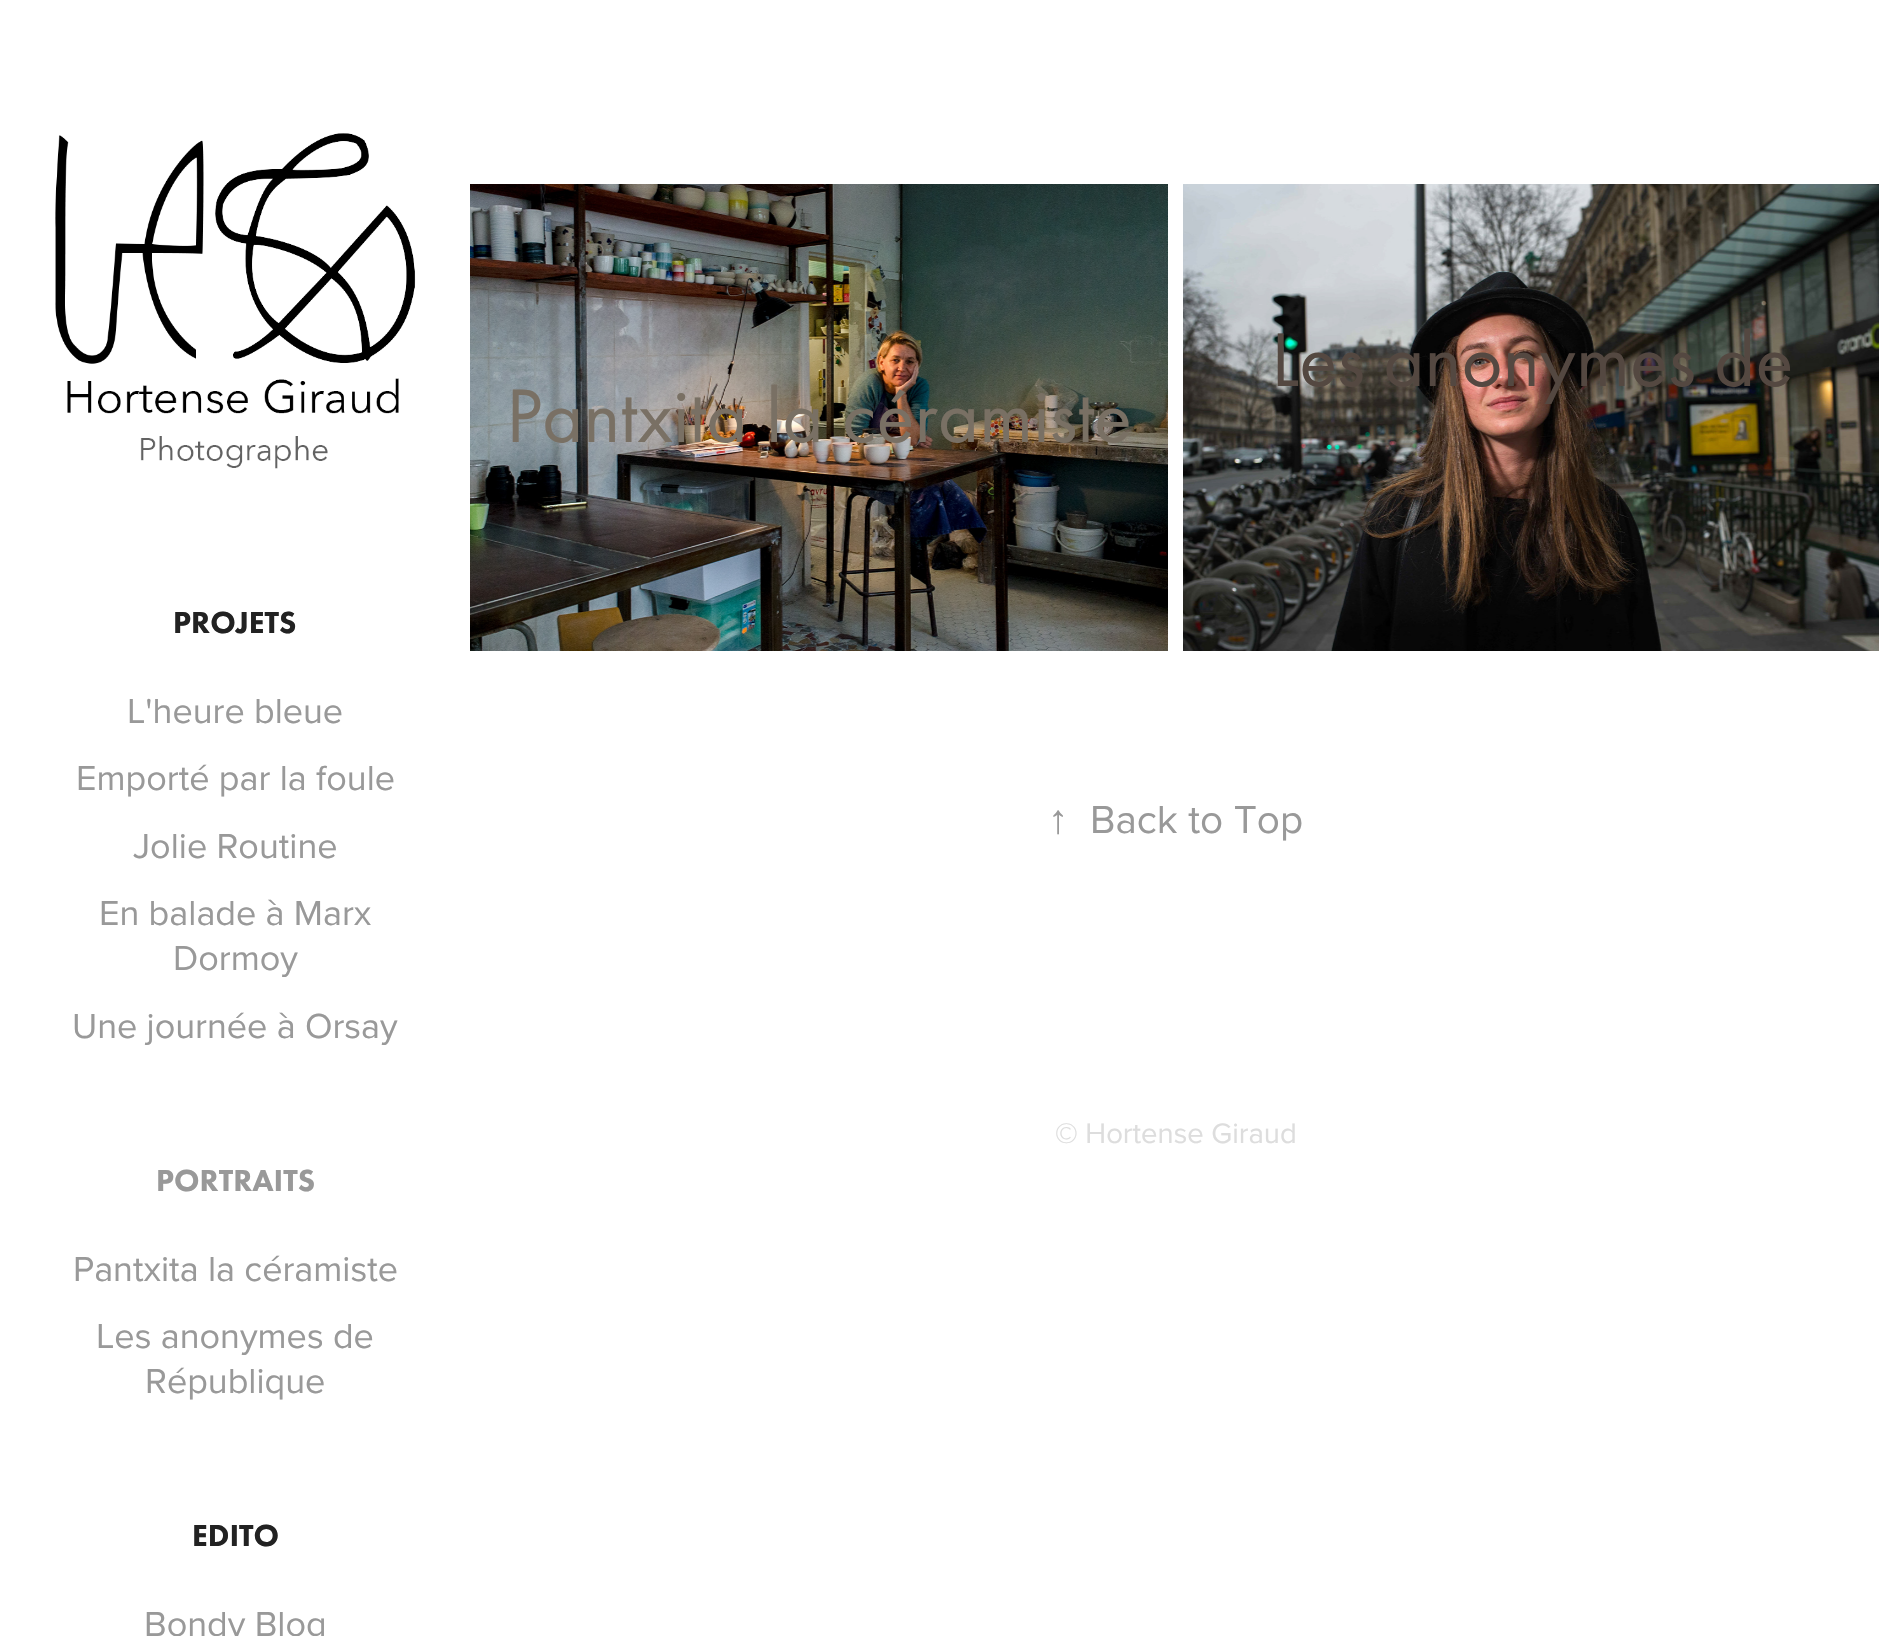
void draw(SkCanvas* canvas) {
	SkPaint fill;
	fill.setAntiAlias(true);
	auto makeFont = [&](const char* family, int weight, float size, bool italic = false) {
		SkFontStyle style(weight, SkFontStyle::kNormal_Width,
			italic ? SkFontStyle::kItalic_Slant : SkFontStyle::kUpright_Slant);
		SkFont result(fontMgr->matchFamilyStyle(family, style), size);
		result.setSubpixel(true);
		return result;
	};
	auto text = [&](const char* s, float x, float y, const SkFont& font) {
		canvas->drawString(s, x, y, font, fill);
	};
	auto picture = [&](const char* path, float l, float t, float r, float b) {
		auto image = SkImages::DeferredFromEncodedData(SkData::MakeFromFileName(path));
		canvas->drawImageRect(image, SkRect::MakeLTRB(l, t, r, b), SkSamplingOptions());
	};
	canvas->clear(0xFFFFFFFF);
	picture("image0.png", 55, 133, 416, 469);
	picture("image1.png", 1183, 184, 1879, 651);
	picture("image2.png", 470, 184, 1168, 651);
	auto font1 = makeFont("Futura PT", 900, 31.5f);
	fill.setColor(0xFF222222);
	text("PROJETS", 173, 633, font1);
	auto font2 = makeFont("Proxima Nova", 400, 36);
	fill.setColor(0xFF999999);
	text("L'heure bleue", 127, 723, font2);
	text("Emporté par la foule", 76, 790, font2);
	text("Jolie Routine", 133, 858, font2);
	text("En balade à Marx", 99, 925, font2);
	text("Dormoy", 173, 970, font2);
	text("Une journée à Orsay", 72, 1038, font2);
	text("PORTRAITS", 156, 1191, font1);
	text("Pantxita la céramiste", 73, 1281, font2);
	text("Les anonymes de", 96, 1348, font2);
	text("République", 145, 1393, font2);
	fill.setColor(0xFF222222);
	text("EDITO", 192, 1546, font1);
	fill.setColor(0xFF999999);
	text("Bondy Blog", 144, 1636, font2);
	auto font3 = makeFont("Futura PT", 400, 78.75f);
	fill.setColor(0xFF544841);
	text("Les anonymes de", 1271, 386, font3);
	fill.setColor(0xFF797064);
	text("Pantxita la céramiste", 506, 442, font3);
	auto font4 = makeFont("Liberation Serif", 400, 40.5f);
	fill.setColor(0xFF999999);
	text("↑", 1048, 833, font4);
	auto font5 = makeFont("Proxima Nova", 400, 40.5f);
	text("Back to Top", 1090, 833, font5);
	auto font6 = makeFont("Proxima Nova", 400, 29.25f);
	fill.setColor(0xFFDDDDDD);
	text("© Hortense Giraud", 1055, 1143, font6);
}
